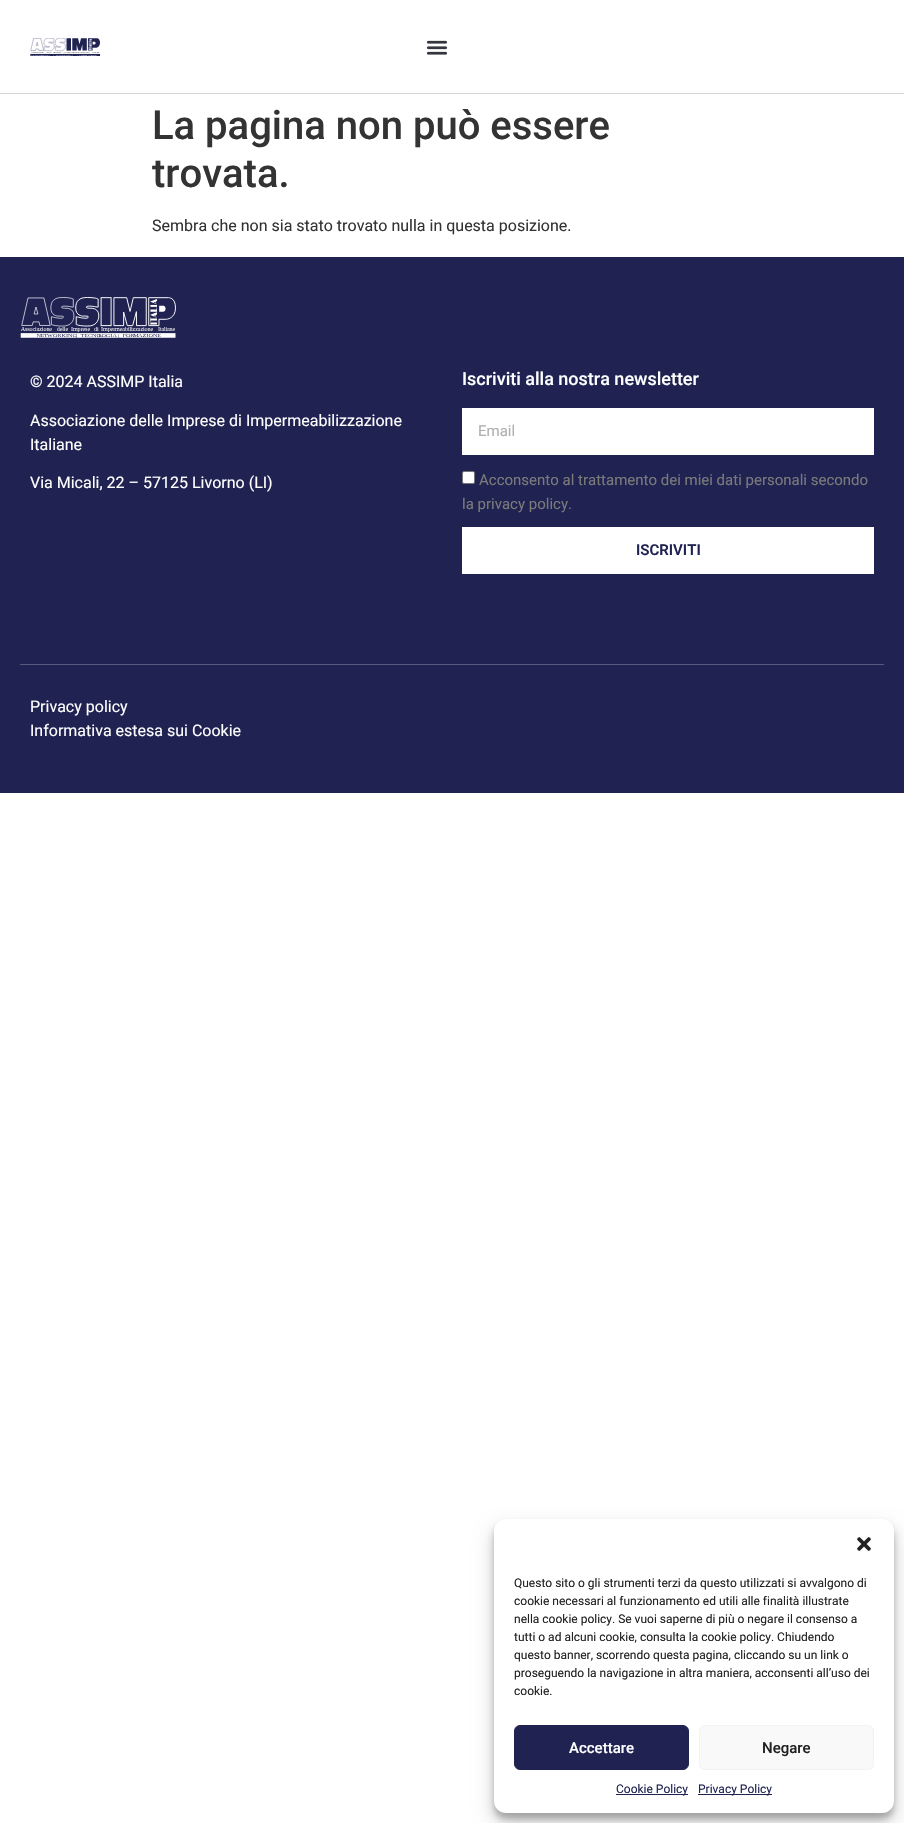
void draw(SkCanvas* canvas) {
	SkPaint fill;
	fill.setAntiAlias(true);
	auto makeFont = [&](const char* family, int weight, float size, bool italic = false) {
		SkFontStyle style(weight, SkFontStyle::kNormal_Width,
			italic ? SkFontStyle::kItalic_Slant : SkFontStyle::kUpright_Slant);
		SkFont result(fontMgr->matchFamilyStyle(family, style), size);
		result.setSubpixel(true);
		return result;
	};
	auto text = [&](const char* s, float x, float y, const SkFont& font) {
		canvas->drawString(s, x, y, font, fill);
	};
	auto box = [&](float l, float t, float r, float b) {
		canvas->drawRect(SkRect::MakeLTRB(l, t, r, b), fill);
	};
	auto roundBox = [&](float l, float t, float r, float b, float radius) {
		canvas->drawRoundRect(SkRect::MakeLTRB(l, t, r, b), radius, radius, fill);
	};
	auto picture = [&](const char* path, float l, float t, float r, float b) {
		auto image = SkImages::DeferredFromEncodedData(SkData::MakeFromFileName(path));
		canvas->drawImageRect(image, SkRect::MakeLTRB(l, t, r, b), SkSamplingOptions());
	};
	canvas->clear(0xFFFFFFFF);
	fill.setColor(0xFFD6D6D6);
	box(0, 93, 904, 94);
	picture("image0.png", 30, 38, 100, 56);
	picture("image1.png", 426, 40, 448, 55);
	fill.setColor(0xFF202352);
	box(0, 257, 904, 793);
	picture("image2.png", 20, 297, 176, 338);
	fill.setColor(0xFFFFFFFF);
	box(462, 408, 874, 455);
	canvas->drawRoundRect(SkRect::MakeLTRB(462.5f, 471.5f, 474.5f, 483.5f), 1.5f, 1.5f, fill);
	fill.setStyle(SkPaint::kStroke_Style);
	fill.setStrokeWidth(1);
	fill.setColor(0xFF767676);
	canvas->drawRoundRect(SkRect::MakeLTRB(462.5f, 471.5f, 474.5f, 483.5f), 1.5f, 1.5f, fill);
	fill.setStyle(SkPaint::kFill_Style);
	fill.setColor(0xFFFFFFFF);
	box(462, 527, 874, 574);
	fill.setColor(0xFF585A7D);
	box(20, 664, 884, 665);
	fill.setColor(0x3B000000);
	fill.setMaskFilter(SkMaskFilter::MakeBlur(kNormal_SkBlurStyle, 3));
	canvas->drawRoundRect(SkRect::MakeLTRB(494, 1525, 894, 1819), 12, 12, fill);
	fill.setMaskFilter(nullptr);
	fill.setColor(0x30000000);
	fill.setMaskFilter(SkMaskFilter::MakeBlur(kNormal_SkBlurStyle, 10));
	canvas->drawRoundRect(SkRect::MakeLTRB(494, 1529, 894, 1823), 12, 12, fill);
	fill.setMaskFilter(nullptr);
	fill.setColor(0xFFFFFFFF);
	roundBox(494, 1519, 894, 1813, 12);
	picture("image3.png", 857, 1537, 871, 1551);
	fill.setColor(0xFF202352);
	canvas->drawRoundRect(SkRect::MakeLTRB(514.5f, 1725.5f, 688.5f, 1769.5f), 5.5f, 5.5f, fill);
	fill.setStyle(SkPaint::kStroke_Style);
	canvas->drawRoundRect(SkRect::MakeLTRB(514.5f, 1725.5f, 688.5f, 1769.5f), 5.5f, 5.5f, fill);
	fill.setStyle(SkPaint::kFill_Style);
	fill.setColor(0xFFF9F9F9);
	canvas->drawRoundRect(SkRect::MakeLTRB(699.5f, 1725.5f, 873.5f, 1769.5f), 5.5f, 5.5f, fill);
	fill.setStyle(SkPaint::kStroke_Style);
	fill.setColor(0xFFF2F2F2);
	canvas->drawRoundRect(SkRect::MakeLTRB(699.5f, 1725.5f, 873.5f, 1769.5f), 5.5f, 5.5f, fill);
	fill.setStyle(SkPaint::kFill_Style);
	fill.setColor(0xFF202352);
	box(616, 1794, 688, 1795);
	box(698, 1794, 772, 1795);
	auto font1 = makeFont("Roboto", 500, 40);
	fill.setColor(0xFF333333);
	text("La pagina non può essere", 152, 139, font1);
	text("trovata.", 152, 187, font1);
	auto font2 = makeFont("Roboto", 400, 16);
	text("Sembra che non sia stato trovato nulla in questa posizione.", 152, 231, font2);
	fill.setColor(0xFFFFFFFF);
	text("© 2024 ASSIMP Italia", 30, 387, font2);
	text("Associazione delle Imprese di Impermeabilizzazione", 30, 426, font2);
	text("Italiane", 30, 450, font2);
	text("Via Micali, 22 – 57125 Livorno (LI)", 30, 488, font2);
	auto font3 = makeFont("Roboto", 500, 18);
	text("Iscriviti alla nostra newsletter", 462, 385, font3);
	auto font4 = makeFont("Roboto", 400, 15);
	fill.setColor(0xFFAFAFAF);
	text("Email", 478, 436, font4);
	fill.setColor(0xFF7A7A7A);
	text("Acconsento al trattamento dei miei dati personali secondo", 479, 485, font4);
	text("la privacy policy.", 462, 509, font4);
	auto font5 = makeFont("Roboto", 600, 15);
	fill.setColor(0xFF202352);
	text("ISCRIVITI", 636, 555, font5);
	fill.setColor(0xFFFFFFFF);
	text("Privacy policy", 30, 712, font2);
	text("Informativa estesa sui Cookie", 30, 736, font2);
	auto font6 = makeFont("Roboto", 400, 12);
	fill.setColor(0xFF222222);
	text("Questo sito o gli strumenti terzi da questo utilizzati si avvalgono di", 514, 1587, font6);
	text("cookie necessari al funzionamento ed utili alle finalità illustrate", 514, 1605, font6);
	text("nella cookie policy. Se vuoi saperne di più o negare il consenso a", 514, 1623, font6);
	text("tutti o ad alcuni cookie, consulta la cookie policy. Chiudendo", 514, 1641, font6);
	text("questo banner, scorrendo questa pagina, cliccando su un link o", 514, 1659, font6);
	text("proseguendo la navigazione in altra maniera, acconsenti all’uso dei", 514, 1677, font6);
	text("cookie.", 514, 1695, font6);
	auto font7 = makeFont("Roboto", 500, 15);
	fill.setColor(0xFFFFFFFF);
	text("Accettare", 569, 1753, font7);
	fill.setColor(0xFF222222);
	text("Negare", 762, 1753, font7);
	fill.setColor(0xFF202352);
	text("Cookie Policy", 616, 1793, font6);
	text("Privacy Policy", 698, 1793, font6);
}
